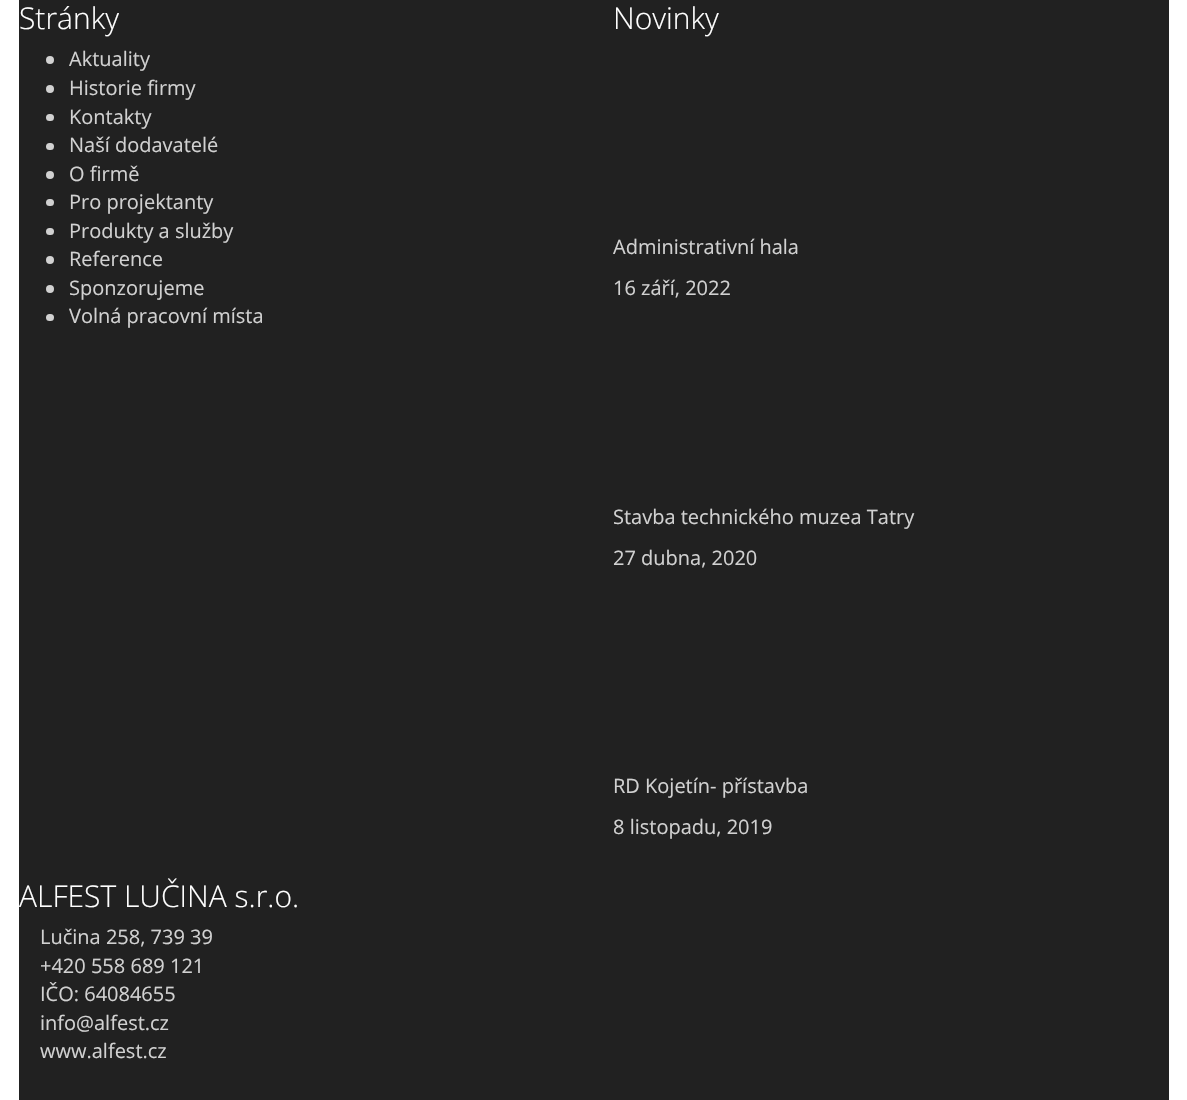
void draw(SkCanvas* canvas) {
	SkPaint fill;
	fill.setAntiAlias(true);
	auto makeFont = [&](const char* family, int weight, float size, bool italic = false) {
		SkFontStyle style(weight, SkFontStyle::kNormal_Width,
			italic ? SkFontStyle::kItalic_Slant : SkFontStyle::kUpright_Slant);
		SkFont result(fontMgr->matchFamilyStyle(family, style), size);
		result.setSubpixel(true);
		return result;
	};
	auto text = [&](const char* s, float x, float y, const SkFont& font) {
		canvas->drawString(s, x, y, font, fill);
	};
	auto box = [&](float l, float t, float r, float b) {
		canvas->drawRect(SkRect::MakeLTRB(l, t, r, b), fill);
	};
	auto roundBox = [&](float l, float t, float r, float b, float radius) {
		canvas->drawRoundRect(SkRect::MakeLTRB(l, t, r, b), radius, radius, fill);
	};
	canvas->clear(0xFFFFFFFF);
	fill.setColor(0xFF212121);
	box(19, 0, 1169, 1100);
	fill.setColor(0xFFD1D1D1);
	canvas->drawCircle(50, 60, 4, fill);
	canvas->drawCircle(50, 89, 4, fill);
	roundBox(46, 114, 54, 121, 3.5f);
	roundBox(46, 143, 54, 150, 3.5f);
	canvas->drawCircle(50, 175, 4, fill);
	roundBox(46, 199, 54, 206, 3.5f);
	roundBox(46, 228, 54, 235, 3.5f);
	canvas->drawCircle(50, 260, 4, fill);
	canvas->drawCircle(50, 289, 4, fill);
	roundBox(46, 314, 54, 321, 3.5f);
	auto font1 = makeFont("Open Sans", 300, 30);
	fill.setColor(0xFFFFFFFF);
	text("Stránky", 19, 29, font1);
	auto font2 = makeFont("Open Sans", 400, 20);
	fill.setColor(0xFFD1D1D1);
	text("Aktuality", 69, 66, font2);
	text("Historie firmy", 69, 95, font2);
	text("Kontakty", 69, 124, font2);
	text("Naší dodavatelé", 69, 152, font2);
	text("O firmě", 69, 181, font2);
	text("Pro projektanty", 69, 209, font2);
	text("Produkty a služby", 69, 238, font2);
	text("Reference", 69, 266, font2);
	text("Sponzorujeme", 69, 295, font2);
	text("Volná pracovní místa", 69, 323, font2);
	fill.setColor(0xFFFFFFFF);
	text("Novinky", 613, 29, font1);
	fill.setColor(0xFFD1D1D1);
	text("Administrativní hala", 613, 254, font2);
	text("16 září, 2022", 613, 295, font2);
	text("Stavba technického muzea Tatry", 613, 524, font2);
	text("27 dubna, 2020", 613, 565, font2);
	text("RD Kojetín- přístavba", 613, 793, font2);
	text("8 listopadu, 2019", 613, 834, font2);
	fill.setColor(0xFFFFFFFF);
	text("ALFEST LUČINA s.r.o.", 19, 907, font1);
	fill.setColor(0xFFD1D1D1);
	text("Lučina 258, 739 39", 40, 944, font2);
	text("+420 558 689 121", 40, 973, font2);
	text("IČO: 64084655", 40, 1001, font2);
	text("info@alfest.cz", 40, 1030, font2);
	text("www.alfest.cz", 40, 1058, font2);
}
